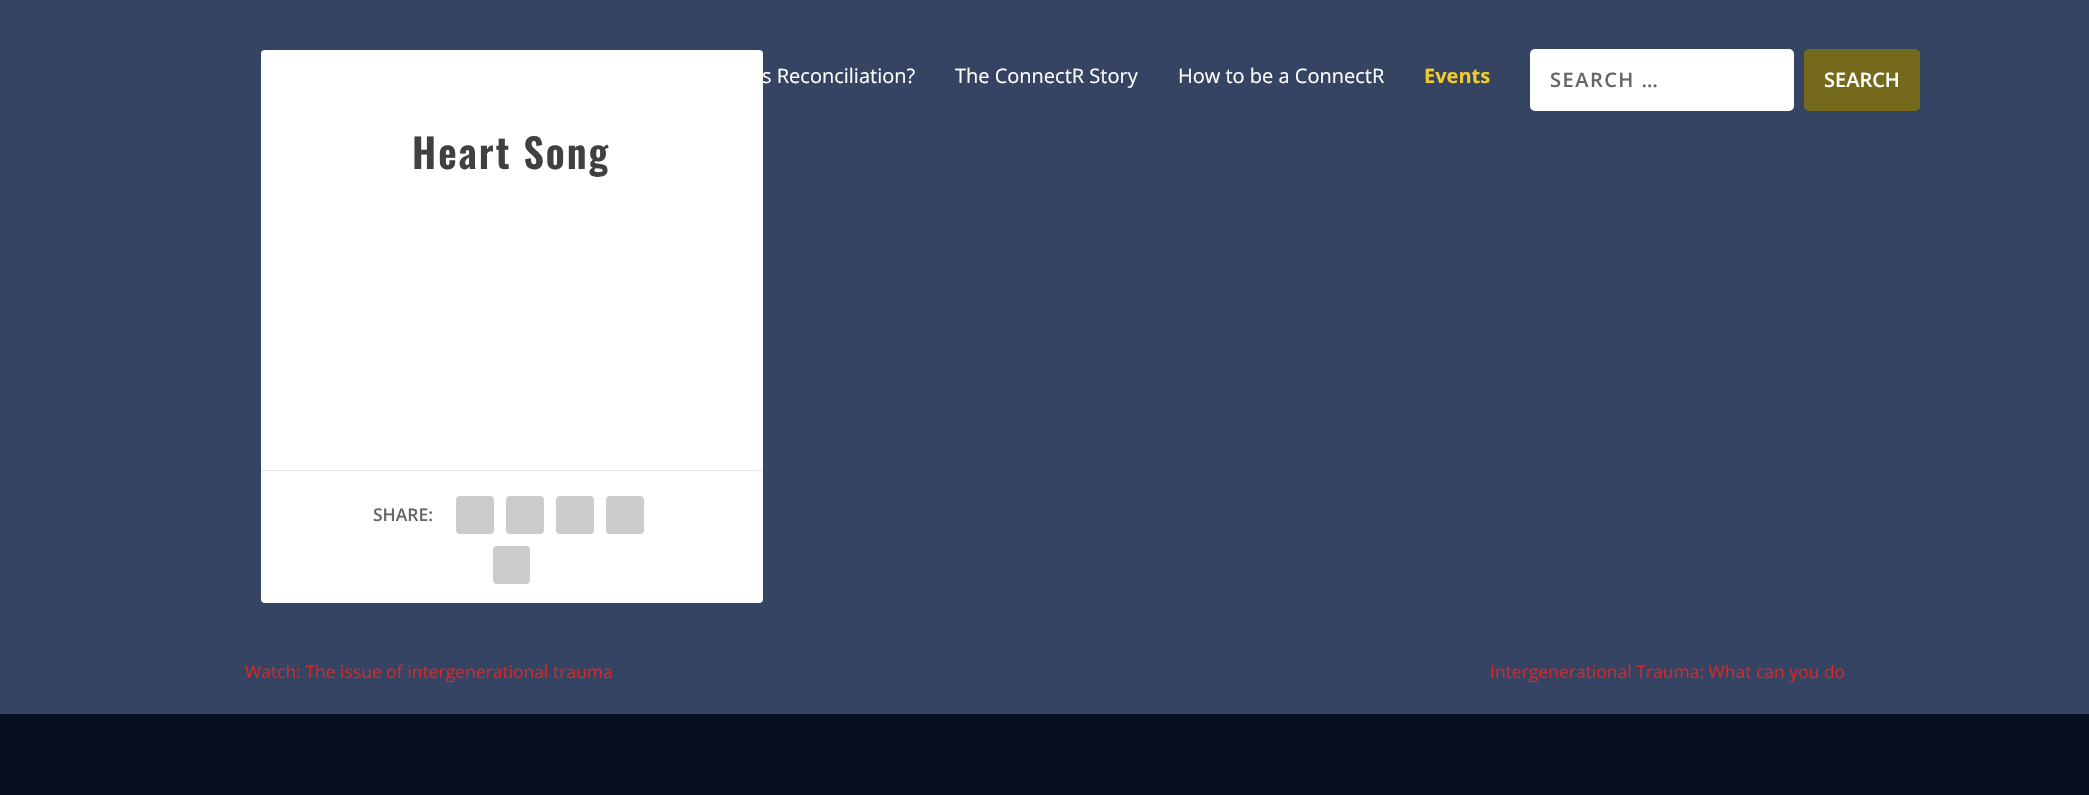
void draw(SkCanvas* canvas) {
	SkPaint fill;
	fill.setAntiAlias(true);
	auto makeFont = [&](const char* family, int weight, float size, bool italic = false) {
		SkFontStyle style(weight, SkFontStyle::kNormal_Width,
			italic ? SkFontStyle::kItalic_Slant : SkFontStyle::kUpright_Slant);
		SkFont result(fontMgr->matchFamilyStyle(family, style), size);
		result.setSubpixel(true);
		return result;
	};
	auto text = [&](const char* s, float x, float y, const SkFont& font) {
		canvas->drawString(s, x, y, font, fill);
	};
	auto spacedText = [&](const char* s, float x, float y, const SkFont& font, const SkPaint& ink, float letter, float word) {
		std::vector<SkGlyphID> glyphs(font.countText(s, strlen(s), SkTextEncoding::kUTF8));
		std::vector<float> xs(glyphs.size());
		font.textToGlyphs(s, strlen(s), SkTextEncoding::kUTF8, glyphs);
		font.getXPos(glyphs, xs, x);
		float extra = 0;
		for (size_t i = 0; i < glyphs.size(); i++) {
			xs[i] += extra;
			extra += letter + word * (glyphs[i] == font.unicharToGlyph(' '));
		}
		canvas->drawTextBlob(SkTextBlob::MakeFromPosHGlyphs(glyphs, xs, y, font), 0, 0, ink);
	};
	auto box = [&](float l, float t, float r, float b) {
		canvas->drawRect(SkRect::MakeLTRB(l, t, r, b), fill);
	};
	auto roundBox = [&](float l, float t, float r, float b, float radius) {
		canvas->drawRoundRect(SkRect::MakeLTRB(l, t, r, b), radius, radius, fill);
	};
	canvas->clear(0xFF364463);
	fill.setColor(0xFFFFFFFF);
	roundBox(1530, 49, 1794, 111, 5);
	fill.setColor(0xFF756A1B);
	roundBox(1804, 49, 1920, 111, 5);
	fill.setColor(0xFFFFFFFF);
	roundBox(261, 50, 763, 603, 4);
	fill.setColor(0xFFE6E6E6);
	box(261, 470, 763, 471);
	fill.setColor(0xFFCCCCCC);
	roundBox(456, 496, 494, 534, 4);
	roundBox(506, 496, 544, 534, 4);
	roundBox(556, 496, 594, 534, 4);
	roundBox(606, 496, 644, 534, 4);
	roundBox(493, 546, 530, 584, 4);
	fill.setColor(0xFF060F21);
	box(0, 714, 2089, 795);
	auto font1 = makeFont("Open Sans", 400, 20);
	fill.setColor(0xFFFFFFFF);
	text("s Reconciliation?", 762, 83, font1);
	text("The ConnectR Story", 955, 83, font1);
	text("How to be a ConnectR", 1178, 83, font1);
	auto font2 = makeFont("Open Sans", 700, 20);
	fill.setColor(0xFFEFCB2D);
	text("Events", 1424, 83, font2);
	auto font3 = makeFont("Open Sans", 600, 20);
	fill.setColor(0xFF666666);
	spacedText("SEARCH …", 1550, 87, font3, fill, 1.5f, 0);
	fill.setColor(0xFFFFFFFF);
	text("SEARCH", 1824, 87, font3);
	auto font4 = makeFont("Oswald", 600, 40.25f);
	fill.setColor(0xFF404040);
	spacedText("Heart Song", 412, 169, font4, fill, 2, 0);
	auto font5 = makeFont("Open Sans", 600, 17.5f);
	fill.setColor(0xFF666666);
	text("SHARE:", 373, 521, font5);
	auto font6 = makeFont("Open Sans", 400, 17.5f);
	fill.setColor(0xFFDD2525);
	text("Watch: The issue of intergenerational trauma", 245, 678, font6);
	text("Intergenerational Trauma: What can you do", 1490, 678, font6);
}
